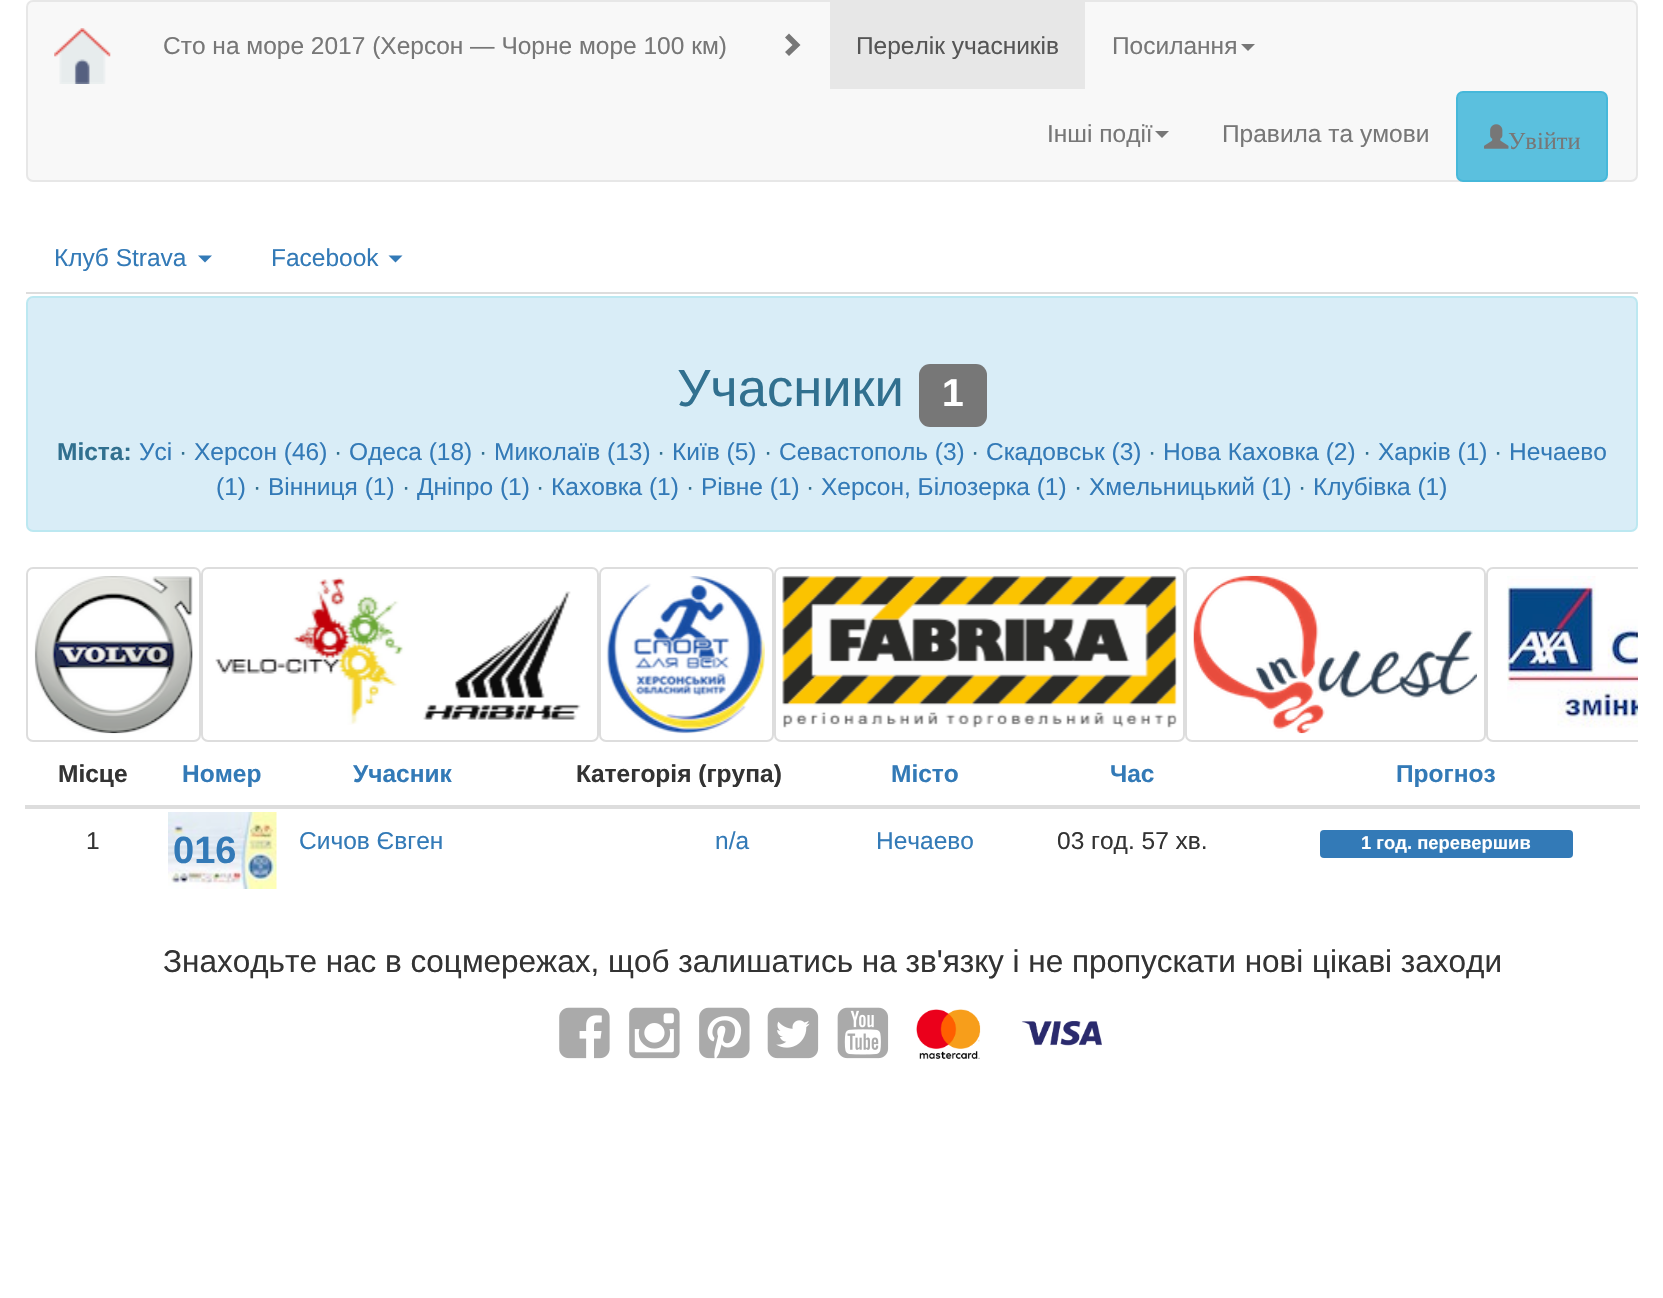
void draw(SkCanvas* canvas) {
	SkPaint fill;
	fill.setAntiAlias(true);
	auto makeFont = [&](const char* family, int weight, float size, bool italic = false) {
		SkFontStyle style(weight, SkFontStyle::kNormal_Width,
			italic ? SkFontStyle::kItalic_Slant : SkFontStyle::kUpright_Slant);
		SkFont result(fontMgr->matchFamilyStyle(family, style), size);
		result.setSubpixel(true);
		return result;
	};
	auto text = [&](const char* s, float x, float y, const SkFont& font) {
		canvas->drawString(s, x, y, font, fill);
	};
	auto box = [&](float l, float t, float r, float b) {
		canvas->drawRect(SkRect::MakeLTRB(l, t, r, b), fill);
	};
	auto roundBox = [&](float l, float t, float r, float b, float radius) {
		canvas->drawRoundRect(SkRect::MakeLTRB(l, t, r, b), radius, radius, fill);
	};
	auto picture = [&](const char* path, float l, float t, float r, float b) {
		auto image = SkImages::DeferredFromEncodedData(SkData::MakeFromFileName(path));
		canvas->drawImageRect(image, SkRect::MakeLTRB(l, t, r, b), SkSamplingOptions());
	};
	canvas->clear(0xFFFFFFFF);
	fill.setColor(0xFFF8F8F8);
	canvas->drawRoundRect(SkRect::MakeLTRB(27, 1, 1637, 181), 6, 6, fill);
	fill.setStyle(SkPaint::kStroke_Style);
	fill.setStrokeWidth(2);
	fill.setColor(0xFFE7E7E7);
	canvas->drawRoundRect(SkRect::MakeLTRB(27, 1, 1637, 181), 6, 6, fill);
	picture("image0.png", 54, 28, 111, 84);
	fill.setStyle(SkPaint::kFill_Style);
	fill.setColor(0xFF777777);
	canvas->drawPath(SkPathBuilder().moveTo(800.5f, 45).lineTo(789, 56).lineTo(785, 52).lineTo(792.5f, 45).lineTo(785, 37.5f).lineTo(789, 33.5f).close().detach(), fill);
	fill.setColor(0xFFE7E7E7);
	box(830, 2, 1085, 89);
	fill.setColor(0xFF777777);
	canvas->drawPath(SkPathBuilder().moveTo(1241, 44).lineTo(1255, 44).lineTo(1248, 51).close().detach(), fill);
	canvas->drawPath(SkPathBuilder().moveTo(1155, 131).lineTo(1169, 131).lineTo(1162, 138).close().detach(), fill);
	fill.setColor(0xFF5BC0DE);
	canvas->drawRoundRect(SkRect::MakeLTRB(1457, 92, 1607, 181), 6, 6, fill);
	fill.setStyle(SkPaint::kStroke_Style);
	fill.setColor(0xFF46B8DA);
	canvas->drawRoundRect(SkRect::MakeLTRB(1457, 92, 1607, 181), 6, 6, fill);
	picture("image1.png", 1484, 124, 1509, 149);
	fill.setStyle(SkPaint::kFill_Style);
	fill.setColor(0xFFDDDDDD);
	box(26, 292, 1638, 294);
	fill.setColor(0xFF337AB7);
	canvas->drawPath(SkPathBuilder().moveTo(198, 255.5f).lineTo(212, 255.5f).lineTo(205, 262.5f).close().detach(), fill);
	canvas->drawPath(SkPathBuilder().moveTo(388.5f, 255.5f).lineTo(402.5f, 255.5f).lineTo(395.5f, 262.5f).close().detach(), fill);
	fill.setColor(0xFFD9EDF7);
	canvas->drawRoundRect(SkRect::MakeLTRB(27, 297, 1637, 531), 6, 6, fill);
	fill.setStyle(SkPaint::kStroke_Style);
	fill.setColor(0xFFBCE8F1);
	canvas->drawRoundRect(SkRect::MakeLTRB(27, 297, 1637, 531), 6, 6, fill);
	fill.setStyle(SkPaint::kFill_Style);
	fill.setColor(0xFF777777);
	roundBox(919, 364, 987, 427, 11);
	fill.setStyle(SkPaint::kStroke_Style);
	fill.setColor(0xFFDDDDDD);
	canvas->drawRoundRect(SkRect::MakeLTRB(27, 568, 200, 741), 6, 6, fill);
	picture("image2.png", 34, 576, 193, 734);
	canvas->drawRoundRect(SkRect::MakeLTRB(202, 568, 598, 741), 6, 6, fill);
	picture("image3.png", 215, 577, 581, 725);
	canvas->drawRoundRect(SkRect::MakeLTRB(600, 568, 773, 741), 6, 6, fill);
	picture("image4.png", 606, 576, 765, 734);
	canvas->drawRoundRect(SkRect::MakeLTRB(775, 568, 1184, 741), 6, 6, fill);
	picture("image5.png", 782, 575, 1177, 728);
	canvas->drawRoundRect(SkRect::MakeLTRB(1186, 568, 1485, 741), 6, 6, fill);
	picture("image6.png", 1193, 575, 1477, 734);
	canvas->save();
	canvas->clipRect(SkRect::MakeLTRB(26, 567, 1638, 742));
	canvas->drawRoundRect(SkRect::MakeLTRB(1487, 568, 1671, 741), 6, 6, fill);
	canvas->restore();
	picture("image7.png", 1507, 576, 1638, 728);
	fill.setStyle(SkPaint::kFill_Style);
	box(25, 805, 1640, 809);
	picture("image8.png", 168, 812, 277, 889);
	fill.setColor(0xFF337AB7);
	roundBox(1320, 830, 1573, 858, 4);
	picture("image9.png", 559, 1007, 610, 1059);
	picture("image10.png", 629, 1007, 680, 1059);
	picture("image11.png", 699, 1007, 750, 1059);
	picture("image12.png", 767, 1007, 819, 1059);
	picture("image13.png", 837, 1007, 889, 1059);
	picture("image14.png", 916, 1009, 1102, 1059);
	auto font1 = makeFont("Liberation Sans", 400, 24.5f);
	fill.setColor(0xFF777777);
	text("Сто на море 2017 (Херсон — Чорне море 100 км)", 163, 54, font1);
	fill.setColor(0xFF555555);
	text("Перелік учасників", 856, 54, font1);
	fill.setColor(0xFF777777);
	text("Посилання", 1112, 54, font1);
	text("Інші події", 1047, 142, font1);
	text("Правила та умови", 1222, 142, font1);
	auto font2 = makeFont("Liberation Serif", 400, 24.5f);
	text("Увійти", 1508, 149, font2);
	fill.setColor(0xFF337AB7);
	text("Клуб Strava", 54, 266, font1);
	text("Facebook", 271, 266, font1);
	auto font3 = makeFont("Liberation Sans", 400, 52.5f);
	fill.setColor(0xFF31708F);
	text("Учасники", 677, 406, font3);
	auto font4 = makeFont("Liberation Sans", 700, 39);
	fill.setColor(0xFFFFFFFF);
	text("1", 942, 406, font4);
	auto font5 = makeFont("Liberation Sans", 700, 24.5f);
	fill.setColor(0xFF31708F);
	text("Міста:", 57, 460, font5);
	fill.setColor(0xFF337AB7);
	text("Усі", 139, 460, font1);
	fill.setColor(0xFF31708F);
	text("·", 179, 460, font1);
	fill.setColor(0xFF337AB7);
	text("Херсон (46)", 194, 460, font1);
	fill.setColor(0xFF31708F);
	text("·", 334, 460, font1);
	fill.setColor(0xFF337AB7);
	text("Одеса (18)", 349, 460, font1);
	fill.setColor(0xFF31708F);
	text("·", 479, 460, font1);
	fill.setColor(0xFF337AB7);
	text("Миколаїв (13)", 494, 460, font1);
	fill.setColor(0xFF31708F);
	text("·", 657, 460, font1);
	fill.setColor(0xFF337AB7);
	text("Київ (5)", 672, 460, font1);
	fill.setColor(0xFF31708F);
	text("·", 764, 460, font1);
	fill.setColor(0xFF337AB7);
	text("Севастополь (3)", 779, 460, font1);
	fill.setColor(0xFF31708F);
	text("·", 971, 460, font1);
	fill.setColor(0xFF337AB7);
	text("Скадовськ (3)", 986, 460, font1);
	fill.setColor(0xFF31708F);
	text("·", 1148, 460, font1);
	fill.setColor(0xFF337AB7);
	text("Нова Каховка (2)", 1163, 460, font1);
	fill.setColor(0xFF31708F);
	text("·", 1363, 460, font1);
	fill.setColor(0xFF337AB7);
	text("Харків (1)", 1378, 460, font1);
	fill.setColor(0xFF31708F);
	text("·", 1494, 460, font1);
	fill.setColor(0xFF337AB7);
	text("Нечаево", 1509, 460, font1);
	text("(1)", 216, 495, font1);
	fill.setColor(0xFF31708F);
	text("·", 253, 495, font1);
	fill.setColor(0xFF337AB7);
	text("Вінниця (1)", 268, 495, font1);
	fill.setColor(0xFF31708F);
	text("·", 402, 495, font1);
	fill.setColor(0xFF337AB7);
	text("Дніпро (1)", 417, 495, font1);
	fill.setColor(0xFF31708F);
	text("·", 536, 495, font1);
	fill.setColor(0xFF337AB7);
	text("Каховка (1)", 551, 495, font1);
	fill.setColor(0xFF31708F);
	text("·", 686, 495, font1);
	fill.setColor(0xFF337AB7);
	text("Рівне (1)", 701, 495, font1);
	fill.setColor(0xFF31708F);
	text("·", 806, 495, font1);
	fill.setColor(0xFF337AB7);
	text("Херсон, Бiлозерка (1)", 821, 495, font1);
	fill.setColor(0xFF31708F);
	text("·", 1074, 495, font1);
	fill.setColor(0xFF337AB7);
	text("Хмельницький (1)", 1089, 495, font1);
	fill.setColor(0xFF31708F);
	text("·", 1298, 495, font1);
	fill.setColor(0xFF337AB7);
	text("Клубівка (1)", 1313, 495, font1);
	fill.setColor(0xFF333333);
	text("Місце", 58, 782, font5);
	fill.setColor(0xFF337AB7);
	text("Номер", 182, 782, font5);
	text("Учасник", 353, 782, font5);
	fill.setColor(0xFF333333);
	text("Категорія (група)", 576, 782, font5);
	fill.setColor(0xFF337AB7);
	text("Місто", 891, 782, font5);
	text("Час", 1110, 782, font5);
	text("Прогноз", 1396, 782, font5);
	fill.setColor(0xFF333333);
	text("1", 86, 849, font1);
	auto font6 = makeFont("Liberation Sans", 700, 38);
	fill.setColor(0xFF337AB7);
	text("016", 173, 863, font6);
	text("Сичов Євген", 299, 849, font1);
	text("n/a", 715, 849, font1);
	text("Нечаево", 876, 849, font1);
	fill.setColor(0xFF333333);
	text("03 год. 57 хв.", 1057, 849, font1);
	auto font7 = makeFont("Liberation Sans", 700, 18.4f);
	fill.setColor(0xFFFFFFFF);
	text("1 год. перевершив", 1361, 849, font7);
	auto font8 = makeFont("Liberation Sans", 400, 31.5f);
	fill.setColor(0xFF333333);
	text("Знаходьте нас в соцмережах, щоб залишатись на зв'язку і не пропускати нові цікаві заходи", 163, 972, font8);
}
